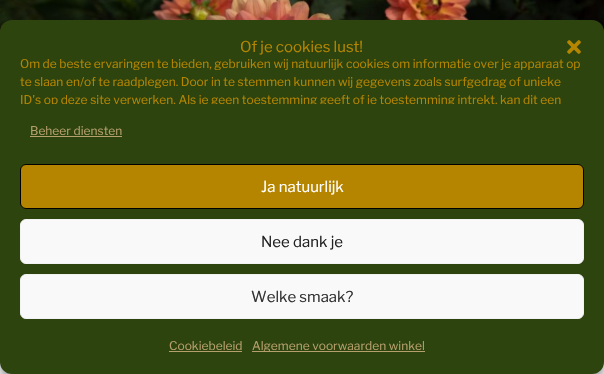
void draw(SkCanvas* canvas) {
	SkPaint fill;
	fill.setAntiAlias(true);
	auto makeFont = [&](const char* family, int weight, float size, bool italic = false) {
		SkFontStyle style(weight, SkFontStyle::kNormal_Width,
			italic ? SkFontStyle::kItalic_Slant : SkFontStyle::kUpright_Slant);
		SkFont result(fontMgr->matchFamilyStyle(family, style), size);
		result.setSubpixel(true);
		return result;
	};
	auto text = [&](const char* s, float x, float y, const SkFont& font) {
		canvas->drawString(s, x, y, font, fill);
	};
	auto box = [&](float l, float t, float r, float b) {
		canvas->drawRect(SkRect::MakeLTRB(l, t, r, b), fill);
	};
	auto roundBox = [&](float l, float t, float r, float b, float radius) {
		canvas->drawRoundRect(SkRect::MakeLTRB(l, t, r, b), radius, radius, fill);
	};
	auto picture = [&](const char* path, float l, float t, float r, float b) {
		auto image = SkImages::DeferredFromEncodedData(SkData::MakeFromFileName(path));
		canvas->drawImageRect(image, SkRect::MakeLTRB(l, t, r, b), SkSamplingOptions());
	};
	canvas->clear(0xFFFFFFFF);
	picture("image0.png", 0, 0, 604, 32);
	fill.setColor(0x3B000000);
	fill.setMaskFilter(SkMaskFilter::MakeBlur(kNormal_SkBlurStyle, 3));
	canvas->drawRoundRect(SkRect::MakeLTRB(0, 26, 604, 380), 12, 12, fill);
	fill.setMaskFilter(nullptr);
	fill.setColor(0x30000000);
	fill.setMaskFilter(SkMaskFilter::MakeBlur(kNormal_SkBlurStyle, 10));
	canvas->drawRoundRect(SkRect::MakeLTRB(0, 30, 604, 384), 12, 12, fill);
	fill.setMaskFilter(nullptr);
	fill.setColor(0xFF2D440F);
	roundBox(0, 20, 604, 374, 12);
	picture("image1.png", 567, 40, 581, 54);
	fill.setColor(0xFFB59F6C);
	box(30, 136, 122, 137);
	fill.setColor(0xFFB58500);
	canvas->drawRoundRect(SkRect::MakeLTRB(20.5f, 164.5f, 583.5f, 208.5f), 5.5f, 5.5f, fill);
	fill.setStyle(SkPaint::kStroke_Style);
	fill.setStrokeWidth(1);
	fill.setColor(0xFF000000);
	canvas->drawRoundRect(SkRect::MakeLTRB(20.5f, 164.5f, 583.5f, 208.5f), 5.5f, 5.5f, fill);
	fill.setStyle(SkPaint::kFill_Style);
	fill.setColor(0xFFF9F9F9);
	canvas->drawRoundRect(SkRect::MakeLTRB(20.5f, 219.5f, 583.5f, 263.5f), 5.5f, 5.5f, fill);
	fill.setStyle(SkPaint::kStroke_Style);
	fill.setColor(0xFFF2F2F2);
	canvas->drawRoundRect(SkRect::MakeLTRB(20.5f, 219.5f, 583.5f, 263.5f), 5.5f, 5.5f, fill);
	fill.setStyle(SkPaint::kFill_Style);
	fill.setColor(0xFFF9F9F9);
	canvas->drawRoundRect(SkRect::MakeLTRB(20.5f, 274.5f, 583.5f, 318.5f), 5.5f, 5.5f, fill);
	fill.setStyle(SkPaint::kStroke_Style);
	fill.setColor(0xFFF2F2F2);
	canvas->drawRoundRect(SkRect::MakeLTRB(20.5f, 274.5f, 583.5f, 318.5f), 5.5f, 5.5f, fill);
	fill.setStyle(SkPaint::kFill_Style);
	fill.setColor(0xFFB59F6C);
	box(169, 351, 242, 352);
	box(252, 351, 425, 352);
	auto font1 = makeFont("Libre Franklin", 100, 15);
	fill.setColor(0xFFB58500);
	text("Of je cookies lust!", 240, 52, font1);
	auto font2 = makeFont("Libre Franklin", 100, 12);
	text("Om de beste ervaringen te bieden, gebruiken wij natuurlijk cookies om informatie over je apparaat op", 20, 68, font2);
	text("te slaan en/of te raadplegen. Door in te stemmen kunnen wij gegevens zoals surfgedrag of unieke", 20, 86, font2);
	canvas->save();
	canvas->clipRect(SkRect::MakeLTRB(20, 55, 584, 104));
	text("ID's op deze site verwerken. Als je geen toestemming geeft of je toestemming intrekt, kan dit een", 20, 104, font2);
	canvas->restore();
	fill.setColor(0xFFB59F6C);
	text("Beheer diensten", 30, 135, font2);
	fill.setColor(0xFFFFFFFF);
	text("Ja natuurlijk", 261, 192, font1);
	fill.setColor(0xFF222222);
	text("Nee dank je", 261, 247, font1);
	fill.setColor(0xFF333333);
	text("Welke smaak?", 251, 302, font1);
	fill.setColor(0xFFB59F6C);
	text("Cookiebeleid", 169, 350, font2);
	text("Algemene voorwaarden winkel", 252, 350, font2);
}
